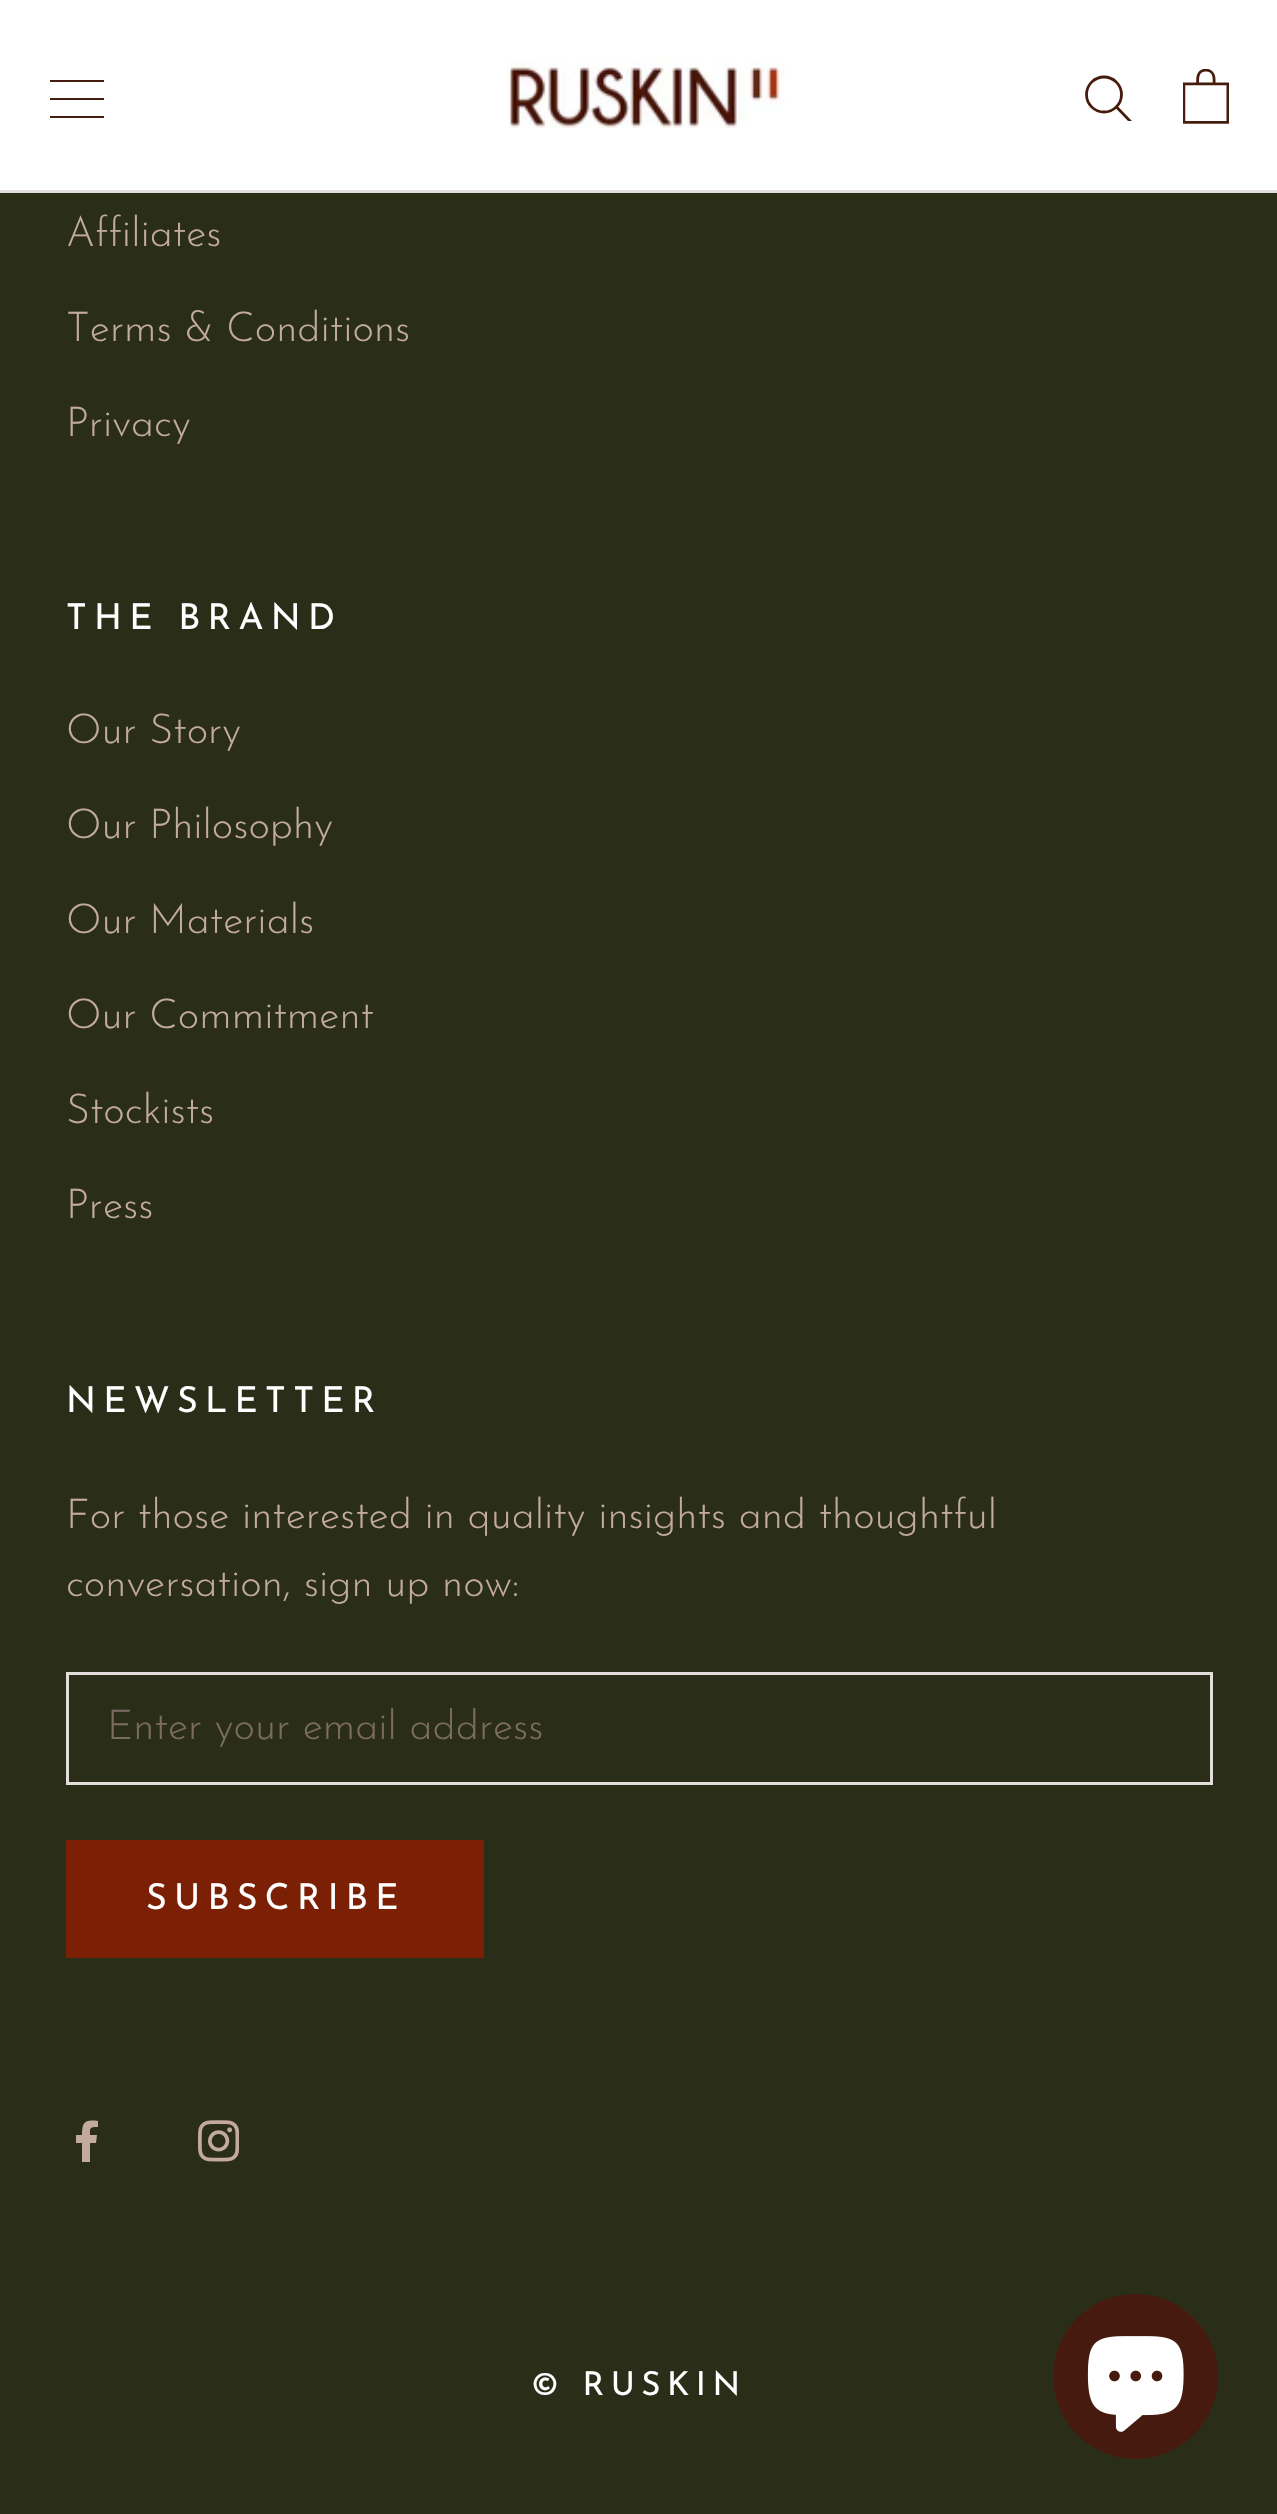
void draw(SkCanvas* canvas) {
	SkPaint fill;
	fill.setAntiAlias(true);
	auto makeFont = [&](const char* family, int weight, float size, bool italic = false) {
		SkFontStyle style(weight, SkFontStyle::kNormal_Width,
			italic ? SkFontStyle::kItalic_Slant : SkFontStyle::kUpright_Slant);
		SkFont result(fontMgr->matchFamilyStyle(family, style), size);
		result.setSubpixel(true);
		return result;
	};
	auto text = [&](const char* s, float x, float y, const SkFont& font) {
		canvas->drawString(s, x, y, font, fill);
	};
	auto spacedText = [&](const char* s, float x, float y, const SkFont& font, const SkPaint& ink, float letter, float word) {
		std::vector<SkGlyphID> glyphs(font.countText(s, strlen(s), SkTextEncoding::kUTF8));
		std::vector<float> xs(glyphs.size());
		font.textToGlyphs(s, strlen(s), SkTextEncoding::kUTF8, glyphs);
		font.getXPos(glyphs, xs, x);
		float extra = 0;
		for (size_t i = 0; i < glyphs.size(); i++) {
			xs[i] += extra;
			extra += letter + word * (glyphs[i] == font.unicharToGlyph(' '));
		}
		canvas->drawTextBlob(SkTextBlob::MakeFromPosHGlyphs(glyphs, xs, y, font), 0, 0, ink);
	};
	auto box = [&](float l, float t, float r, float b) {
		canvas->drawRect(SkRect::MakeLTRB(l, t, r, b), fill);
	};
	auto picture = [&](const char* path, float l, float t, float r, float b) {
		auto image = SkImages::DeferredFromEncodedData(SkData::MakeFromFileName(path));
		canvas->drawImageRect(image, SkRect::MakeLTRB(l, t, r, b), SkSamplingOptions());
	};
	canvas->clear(0xFF2A2D18);
	fill.setColor(0xFFFFFFFF);
	box(0, 0, 1277, 190);
	fill.setColor(0xFFE3DDDB);
	box(0, 190, 1277, 193);
	fill.setColor(0xFF461C0C);
	canvas->drawPath(SkPathBuilder().moveTo(50, 118).lineTo(50, 116).lineTo(104, 116).lineTo(104, 118).close().moveTo(50, 98).lineTo(104, 98).lineTo(104, 100).lineTo(50, 100).close().moveTo(50, 80).lineTo(104, 80).lineTo(104, 82).lineTo(50, 82).close().detach(), fill);
	picture("image0.png", 507, 57, 785, 128);
	canvas->save();
	canvas->clipRect(SkRect::MakeLTRB(1084, 74, 1133, 121));
	fill.setStyle(SkPaint::kStroke_Style);
	fill.setStrokeWidth(2.8f);
	fill.setStrokeCap(SkPaint::kSquare_Cap);
	canvas->drawPath(SkPathBuilder().moveTo(1130, 121).lineTo(1116.5f, 107).detach(), fill);
	canvas->restore();
	fill.setStrokeCap(SkPaint::kButt_Cap);
	canvas->drawCircle(1104, 94.5f, 17.5f, fill);
	picture("image1.png", 1183, 69, 1229, 124);
	fill.setStrokeWidth(3);
	fill.setColor(0xFFE3DDDB);
	canvas->drawRect(SkRect::MakeLTRB(67.5f, 1673.5f, 1211.5f, 1783.5f), fill);
	fill.setColor(0xFF7C2005);
	canvas->drawRect(SkRect::MakeLTRB(67.5f, 1841.5f, 482.5f, 1956.5f), fill);
	fill.setStyle(SkPaint::kFill_Style);
	box(69, 1843, 481, 1955);
	fill.setColor(0xFFC2AA9D);
	canvas->drawPath(SkPathBuilder().moveTo(90, 2162).lineTo(90, 2143).lineTo(96, 2143).lineTo(97, 2135).lineTo(90, 2135).cubicTo(90, 2128, 89, 2127, 98, 2127).lineTo(98, 2121).cubicTo(84, 2119, 82, 2123, 82, 2135).lineTo(76, 2135).lineTo(76, 2143).lineTo(82, 2143).lineTo(82, 2162).close().detach(), fill);
	picture("image2.png", 198, 2120, 239, 2162);
	fill.setColor(0xFF461A0E);
	canvas->drawCircle(1135.5f, 2376.5f, 82.5f, fill);
	picture("image3.png", 1087, 2336, 1184, 2432);
	auto font1 = makeFont("Josefin Sans", 300, 41.25f);
	fill.setColor(0xFFC2AA9D);
	text("Affiliates", 66, 246, font1);
	text("Terms & Conditions", 66, 341, font1);
	text("Privacy", 66, 436, font1);
	auto font2 = makeFont("Josefin Sans", 400, 35.75f);
	fill.setColor(0xFFFFFFFF);
	spacedText("THE BRAND", 66, 629, font2, fill, 7.25f, 0);
	fill.setColor(0xFFC2AA9D);
	text("Our Story", 66, 743, font1);
	text("Our Philosophy", 66, 838, font1);
	text("Our Materials", 66, 933, font1);
	text("Our Commitment", 66, 1028, font1);
	text("Stockists", 66, 1123, font1);
	text("Press", 66, 1218, font1);
	fill.setColor(0xFFFFFFFF);
	spacedText("NEWSLETTER", 66, 1412, font2, fill, 7.25f, 0);
	fill.setColor(0xFFC2AA9D);
	text("For those interested in quality insights and thoughtful", 66, 1528, font1);
	text("conversation, sign up now:", 66, 1596, font1);
	canvas->save();
	canvas->clipRect(SkRect::MakeLTRB(107, 1708, 1172, 1749));
	fill.setColor(0xFF7B6B63);
	text("Enter your email address", 107, 1739, font1);
	canvas->restore();
	fill.setColor(0xFFFFFFFF);
	spacedText("SUBSCRIBE", 146, 1909, font2, fill, 7.25f, 0);
	auto font3 = makeFont("Josefin Sans", 400, 33);
	spacedText("© RUSKIN", 531, 2395, font3, fill, 6.5f, 0);
}
